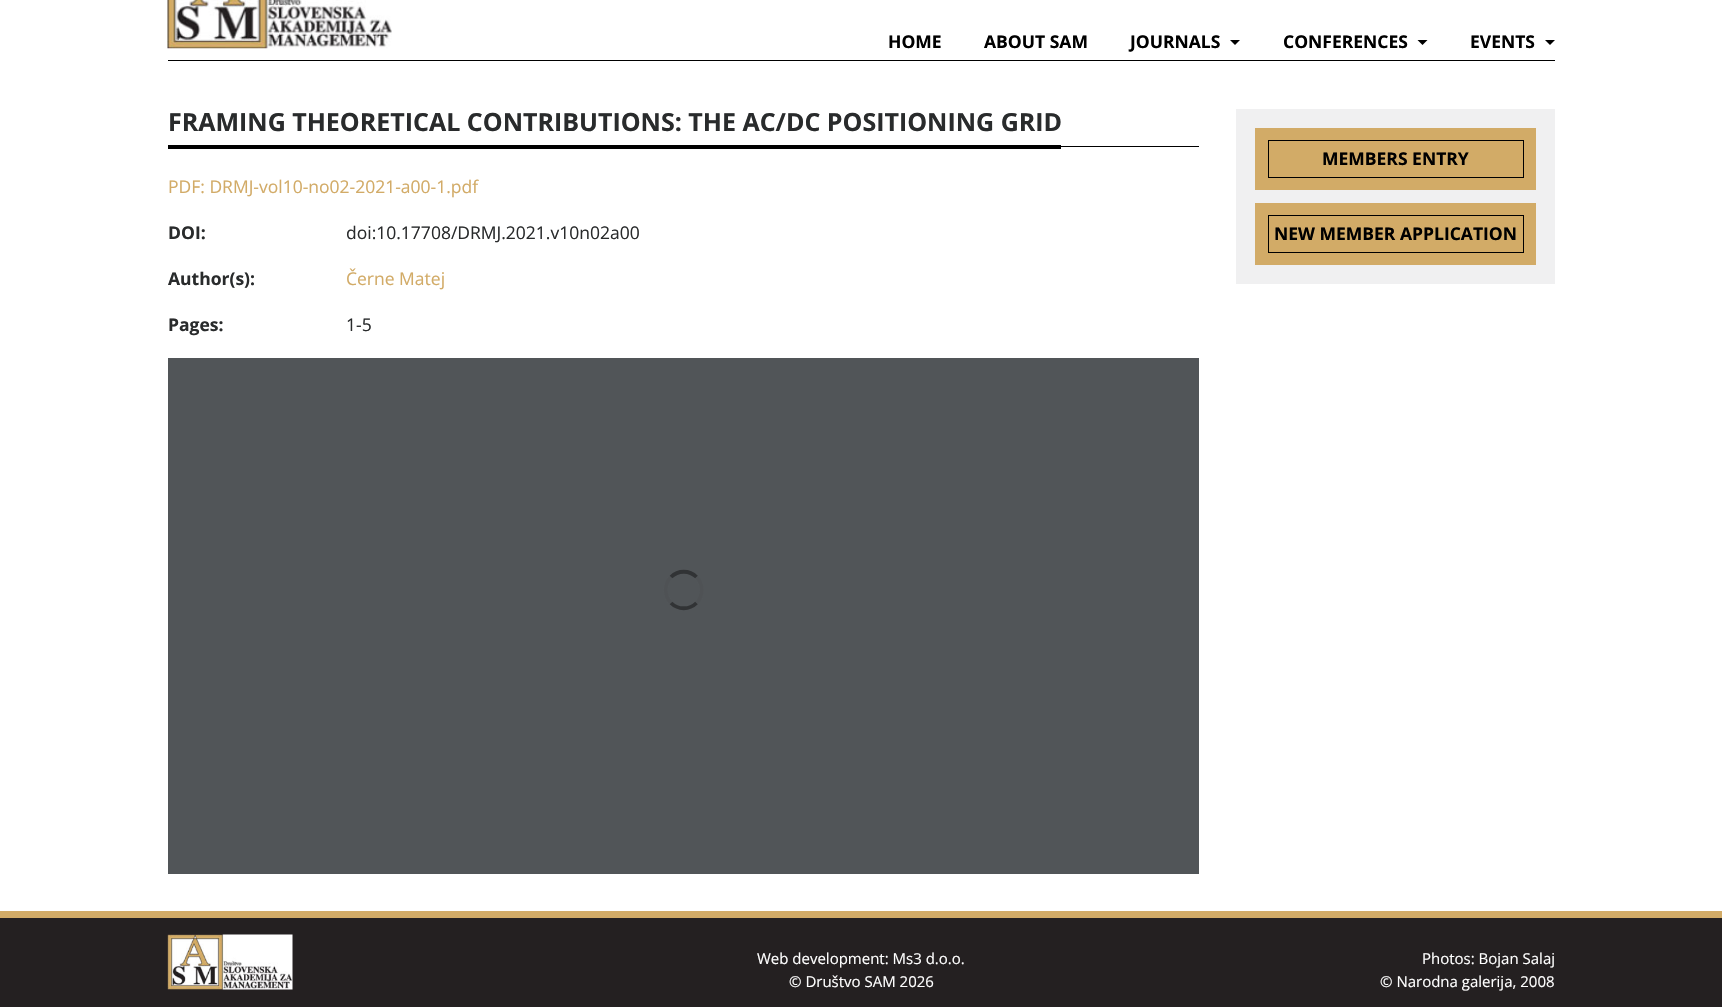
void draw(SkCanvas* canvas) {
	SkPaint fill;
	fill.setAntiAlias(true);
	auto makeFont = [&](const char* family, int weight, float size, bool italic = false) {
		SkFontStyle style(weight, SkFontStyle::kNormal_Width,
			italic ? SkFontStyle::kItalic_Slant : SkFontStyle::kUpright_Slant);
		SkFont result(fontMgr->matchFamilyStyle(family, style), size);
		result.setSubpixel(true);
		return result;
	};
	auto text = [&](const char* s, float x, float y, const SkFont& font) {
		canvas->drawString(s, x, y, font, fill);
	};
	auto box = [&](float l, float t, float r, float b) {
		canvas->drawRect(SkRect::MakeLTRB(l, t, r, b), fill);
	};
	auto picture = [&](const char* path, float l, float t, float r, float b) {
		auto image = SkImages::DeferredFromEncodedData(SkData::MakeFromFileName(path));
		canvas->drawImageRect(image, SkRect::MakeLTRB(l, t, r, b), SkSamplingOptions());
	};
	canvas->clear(0xFFFFFFFF);
	picture("image0.png", 167, 0, 392, 49);
	fill.setColor(0xFF000000);
	canvas->drawPath(SkPathBuilder().moveTo(1230, 40).lineTo(1240, 40).lineTo(1235, 45).close().detach(), fill);
	canvas->drawPath(SkPathBuilder().moveTo(1417.5f, 40).lineTo(1427.5f, 40).lineTo(1422.5f, 45).close().detach(), fill);
	canvas->drawPath(SkPathBuilder().moveTo(1545, 40).lineTo(1555, 40).lineTo(1550, 45).close().detach(), fill);
	box(168, 60, 1555, 61);
	box(1061, 146, 1199, 147);
	box(168, 145, 1061, 149);
	fill.setColor(0xFF515558);
	box(168, 358, 1199, 874);
	fill.setStyle(SkPaint::kStroke_Style);
	fill.setStrokeWidth(3.8f);
	fill.setColor(0xFF313335);
	canvas->drawPath(SkPathBuilder().moveTo(671, 577).cubicTo(678, 570, 689.5f, 570, 696.5f, 577).detach(), fill);
	fill.setColor(0x1A3C3C3C);
	canvas->drawPath(SkPathBuilder().moveTo(696.5f, 577).cubicTo(703.5f, 584, 703.5f, 596, 696.5f, 603).detach(), fill);
	fill.setColor(0xFF313335);
	canvas->drawPath(SkPathBuilder().moveTo(696.5f, 603).cubicTo(689.5f, 610, 678, 610, 671, 603).detach(), fill);
	fill.setColor(0x1A3C3C3C);
	canvas->drawPath(SkPathBuilder().moveTo(671, 603).cubicTo(664, 596, 664, 584, 671, 577).detach(), fill);
	fill.setStyle(SkPaint::kFill_Style);
	fill.setColor(0xFFF0F0F1);
	box(1236, 109, 1555, 284);
	fill.setColor(0xFFD2AB67);
	box(1255, 128, 1536, 190);
	fill.setStyle(SkPaint::kStroke_Style);
	fill.setStrokeWidth(1);
	fill.setColor(0xFF000000);
	canvas->drawRect(SkRect::MakeLTRB(1268.5f, 140.5f, 1523.5f, 177.5f), fill);
	fill.setStyle(SkPaint::kFill_Style);
	fill.setColor(0xFFD2AB67);
	box(1255, 203, 1536, 265);
	fill.setStyle(SkPaint::kStroke_Style);
	fill.setColor(0xFF000000);
	canvas->drawRect(SkRect::MakeLTRB(1268.5f, 215.5f, 1523.5f, 252.5f), fill);
	fill.setStyle(SkPaint::kFill_Style);
	fill.setColor(0xFF242021);
	box(0, 918, 1722, 1007);
	fill.setColor(0xFFD2AB67);
	box(0, 911, 1722, 918);
	picture("image1.png", 167, 934, 293, 990);
	auto font1 = makeFont("Open Sans", 700, 17.5f);
	fill.setColor(0xFF000000);
	text("HOME", 888, 48, font1);
	text("ABOUT SAM", 984, 48, font1);
	text("JOURNALS", 1130, 48, font1);
	text("CONFERENCES", 1283, 48, font1);
	text("EVENTS", 1470, 48, font1);
	auto font2 = makeFont("Open Sans", 700, 25);
	fill.setColor(0xFF292B2C);
	text("FRAMING THEORETICAL CONTRIBUTIONS: THE AC/DC POSITIONING GRID", 168, 131, font2);
	auto font3 = makeFont("Open Sans", 400, 17.5f);
	fill.setColor(0xFFD2AB67);
	text("PDF: DRMJ-vol10-no02-2021-a00-1.pdf", 168, 193, font3);
	fill.setColor(0xFF292B2C);
	text("DOI:", 168, 239, font1);
	text("doi:10.17708/DRMJ.2021.v10n02a00", 346, 239, font3);
	text("Author(s):", 168, 285, font1);
	fill.setColor(0xFFD2AB67);
	text("Černe Matej", 346, 285, font3);
	fill.setColor(0xFF292B2C);
	text("Pages:", 168, 331, font1);
	text("1-5", 346, 331, font3);
	fill.setColor(0xFF000000);
	text("MEMBERS ENTRY", 1322, 165, font1);
	text("NEW MEMBER APPLICATION", 1274, 240, font1);
	auto font4 = makeFont("Open Sans", 400, 15);
	fill.setColor(0xFFFFFFFF);
	text("Web development: Ms3 d.o.o.", 757, 964, font4);
	text("© Društvo SAM 2026", 789, 987, font4);
	text("Photos: Bojan Salaj", 1422, 964, font4);
	text("© Narodna galerija, 2008", 1380, 987, font4);
}
